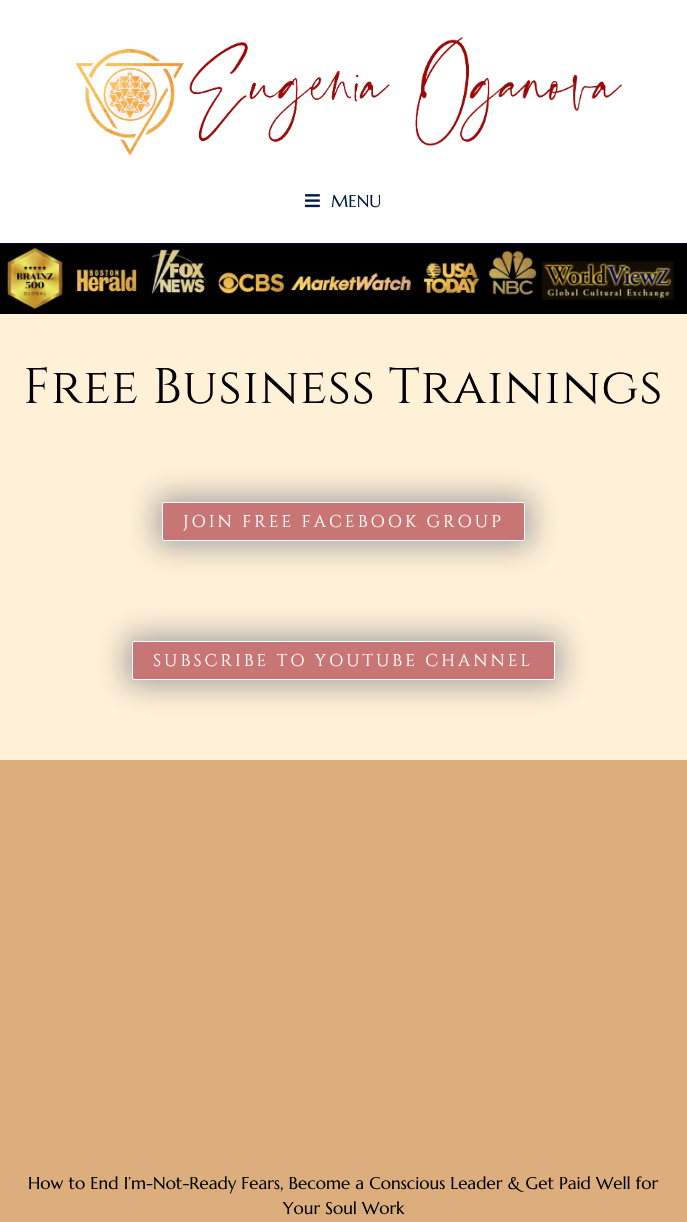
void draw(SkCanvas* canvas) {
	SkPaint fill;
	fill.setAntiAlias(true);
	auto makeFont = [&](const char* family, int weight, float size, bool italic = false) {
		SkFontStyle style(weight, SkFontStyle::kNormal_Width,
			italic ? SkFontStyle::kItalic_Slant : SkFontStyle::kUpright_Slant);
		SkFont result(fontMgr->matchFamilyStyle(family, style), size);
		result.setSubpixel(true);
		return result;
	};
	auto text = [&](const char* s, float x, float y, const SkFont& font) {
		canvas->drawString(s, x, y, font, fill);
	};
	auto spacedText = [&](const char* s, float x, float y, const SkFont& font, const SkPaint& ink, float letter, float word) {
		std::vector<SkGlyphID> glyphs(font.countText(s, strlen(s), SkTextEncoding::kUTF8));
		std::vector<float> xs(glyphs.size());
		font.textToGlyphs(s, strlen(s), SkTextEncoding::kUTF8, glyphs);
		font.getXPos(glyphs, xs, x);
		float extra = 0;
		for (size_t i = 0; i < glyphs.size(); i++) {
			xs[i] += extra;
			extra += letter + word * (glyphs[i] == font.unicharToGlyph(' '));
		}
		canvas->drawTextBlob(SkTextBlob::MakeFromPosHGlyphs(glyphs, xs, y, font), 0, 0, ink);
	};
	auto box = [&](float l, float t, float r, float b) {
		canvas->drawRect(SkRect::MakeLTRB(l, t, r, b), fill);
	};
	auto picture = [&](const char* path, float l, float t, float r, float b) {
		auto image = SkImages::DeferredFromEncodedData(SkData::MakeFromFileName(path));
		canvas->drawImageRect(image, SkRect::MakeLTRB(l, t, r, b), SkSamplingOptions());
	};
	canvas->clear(0xFFFFFFFF);
	fill.setColor(0xFF010060);
	box(0, 243, 687, 244);
	picture("image0.png", 75, 37, 623, 156);
	picture("image1.png", 305, 194, 320, 208);
	fill.setColor(0xFFFFF1D7);
	box(0, 314, 687, 760);
	picture("image2.png", 0, 244, 687, 314);
	fill.setColor(0x5200093A);
	fill.setMaskFilter(SkMaskFilter::MakeBlur(kNormal_SkBlurStyle, 14.5f));
	canvas->drawRoundRect(SkRect::MakeLTRB(155, 495, 532, 548), 9, 9, fill);
	fill.setMaskFilter(nullptr);
	fill.setColor(0xFFC77675);
	canvas->drawRoundRect(SkRect::MakeLTRB(162.5f, 502.5f, 524.5f, 540.5f), 1.5f, 1.5f, fill);
	fill.setStyle(SkPaint::kStroke_Style);
	fill.setStrokeWidth(1);
	fill.setColor(0xFFFFFFFF);
	canvas->drawRoundRect(SkRect::MakeLTRB(162.5f, 502.5f, 524.5f, 540.5f), 1.5f, 1.5f, fill);
	fill.setStyle(SkPaint::kFill_Style);
	fill.setColor(0x5200093A);
	fill.setMaskFilter(SkMaskFilter::MakeBlur(kNormal_SkBlurStyle, 14.5f));
	canvas->drawRoundRect(SkRect::MakeLTRB(125, 634, 562, 687), 9, 9, fill);
	fill.setMaskFilter(nullptr);
	fill.setColor(0xFFC77675);
	canvas->drawRoundRect(SkRect::MakeLTRB(132.5f, 641.5f, 554.5f, 679.5f), 1.5f, 1.5f, fill);
	fill.setStyle(SkPaint::kStroke_Style);
	fill.setColor(0xFFFFFFFF);
	canvas->drawRoundRect(SkRect::MakeLTRB(132.5f, 641.5f, 554.5f, 679.5f), 1.5f, 1.5f, fill);
	fill.setStyle(SkPaint::kFill_Style);
	fill.setColor(0xFFDCAE7D);
	box(0, 760, 687, 1222);
	auto font1 = makeFont("Marcellus", 400, 17);
	fill.setColor(0xFF001B3F);
	text("MENU", 331, 207, font1);
	auto font2 = makeFont("Cinzel", 400, 50);
	fill.setColor(0xFF000000);
	spacedText("Free Business Trainings", 23, 403, font2, fill, 0.8f, 0);
	auto font3 = makeFont("Cinzel", 400, 17);
	fill.setColor(0xFFFFFFFF);
	spacedText("JOIN FREE FACEBOOK GROUP", 183, 527, font3, fill, 3, 0);
	spacedText("SUBSCRIBE TO YOUTUBE CHANNEL", 153, 666, font3, fill, 3, 0);
	fill.setColor(0xFF000000);
	text("How to End I’m-Not-Ready Fears, Become a Conscious Leader & Get Paid Well for", 28, 1189, font1);
	text("Your Soul Work", 283, 1214, font1);
}
